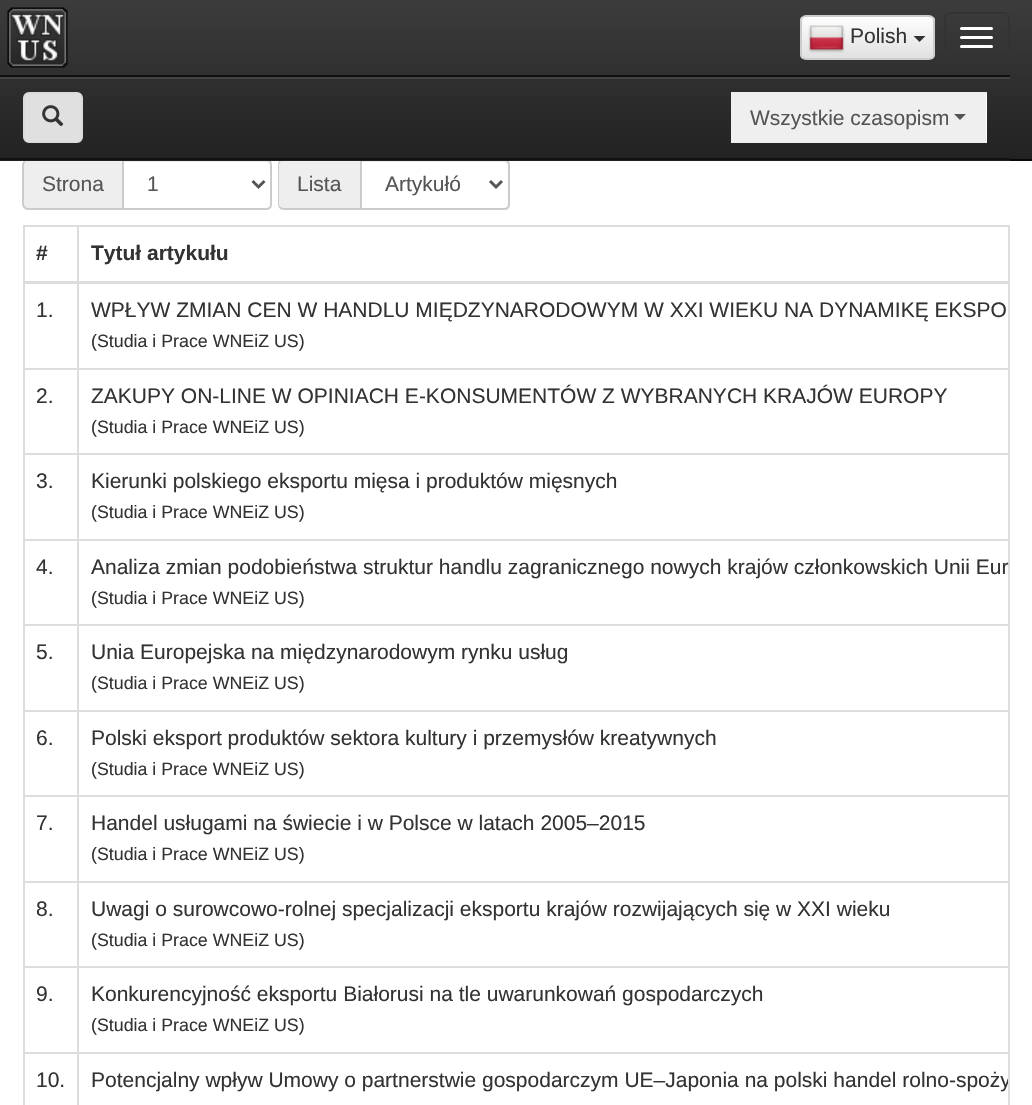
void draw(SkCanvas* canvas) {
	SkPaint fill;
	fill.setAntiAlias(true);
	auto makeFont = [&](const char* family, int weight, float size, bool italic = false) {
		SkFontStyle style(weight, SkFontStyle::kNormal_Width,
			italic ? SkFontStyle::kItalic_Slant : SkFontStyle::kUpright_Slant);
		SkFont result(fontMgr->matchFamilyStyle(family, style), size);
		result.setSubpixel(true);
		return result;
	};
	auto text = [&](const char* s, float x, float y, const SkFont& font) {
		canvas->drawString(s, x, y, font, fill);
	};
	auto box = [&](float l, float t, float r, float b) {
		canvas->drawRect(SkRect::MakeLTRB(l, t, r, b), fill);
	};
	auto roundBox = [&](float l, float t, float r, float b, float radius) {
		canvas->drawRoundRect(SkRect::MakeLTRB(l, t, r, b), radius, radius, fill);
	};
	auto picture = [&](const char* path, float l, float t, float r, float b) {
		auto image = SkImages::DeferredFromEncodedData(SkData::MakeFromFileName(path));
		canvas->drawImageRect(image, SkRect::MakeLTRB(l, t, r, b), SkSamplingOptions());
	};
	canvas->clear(0xFFFFFFFF);
	{
		const SkColor colors[] = {0xFF3C3C3C, 0xFF222222};
		const float stops[] = {0, 1};
		const SkPoint ends[] = {{516, 0}, {516, 159}};
		fill.setShader(SkGradientShader::MakeLinear(ends, colors, stops, 2, SkTileMode::kClamp));
		fill.setAlpha(255);
	}
	box(0, 0, 1032, 159);
	fill.setShader(nullptr);
	fill.setColor(0xFF080808);
	box(1010, 159, 1032, 161);
	picture("image0.png", 7, 7, 68, 68);
	fill.setStyle(SkPaint::kStroke_Style);
	fill.setStrokeWidth(2);
	fill.setColor(0xFF333333);
	canvas->drawRoundRect(SkRect::MakeLTRB(945, 13, 1009, 62), 5, 5, fill);
	fill.setStyle(SkPaint::kFill_Style);
	fill.setColor(0xFFFFFFFF);
	roundBox(960, 27, 993, 30, 1.5f);
	roundBox(960, 36, 993, 39, 1.5f);
	roundBox(960, 45, 993, 48, 1.5f);
	canvas->save();
	canvas->clipPath(SkPathBuilder().moveTo(806, 15).lineTo(929, 15).cubicTo(932.5f, 15, 935, 17.5f, 935, 21).lineTo(935, 54).cubicTo(935, 57.5f, 932.5f, 60, 929, 60).lineTo(806, 60).cubicTo(802.5f, 60, 800, 57.5f, 800, 54).lineTo(800, 21).cubicTo(800, 17.5f, 802.5f, 15, 806, 15).close().detach(), true);
	{
		const SkColor colors[] = {0xFFFFFFFF, 0xFFE0E0E0};
		const float stops[] = {0, 1};
		const SkPoint ends[] = {{867, 16}, {867, 59}};
		fill.setShader(SkGradientShader::MakeLinear(ends, colors, stops, 2, SkTileMode::kClamp));
		fill.setAlpha(255);
	}
	box(800, 17, 935, 59);
	canvas->restore();
	fill.setStyle(SkPaint::kStroke_Style);
	fill.setShader(nullptr);
	fill.setColor(0xFFCCCCCC);
	canvas->drawRoundRect(SkRect::MakeLTRB(801, 16, 934, 59), 5, 5, fill);
	picture("image1.png", 808, 25, 845, 53);
	fill.setStyle(SkPaint::kFill_Style);
	fill.setColor(0xFF333333);
	canvas->drawPath(SkPathBuilder().moveTo(913.5f, 36).lineTo(925.5f, 36).lineTo(919.5f, 42).close().detach(), fill);
	fill.setColor(0xFFEEEEEE);
	canvas->drawPath(SkPathBuilder().moveTo(29, 159).lineTo(122, 159).lineTo(122, 210).lineTo(29, 210).cubicTo(25.5f, 210, 23, 207.5f, 23, 204).lineTo(23, 165).cubicTo(23, 161.5f, 25.5f, 159, 29, 159).close().detach(), fill);
	fill.setColor(0xFFCCCCCC);
	canvas->drawPath(SkPathBuilder(SkPathFillType::kEvenOdd).moveTo(28, 159).lineTo(122, 159).lineTo(122, 210).lineTo(28, 210).cubicTo(25, 210, 22, 207, 22, 204).lineTo(22, 165).cubicTo(22, 162, 25, 159, 28, 159).close().moveTo(28, 160).lineTo(122, 160).lineTo(122, 208).lineTo(28, 208).cubicTo(26, 208, 24, 206, 24, 204).lineTo(24, 165).cubicTo(24, 163, 26, 160, 28, 160).close().detach(), fill);
	fill.setColor(0xFFECECEC);
	canvas->drawPath(SkPathBuilder().moveTo(123, 162).lineTo(266, 162).cubicTo(268, 162, 270, 164, 270, 166).cubicTo(270, 163, 268, 161, 265, 161).lineTo(123, 161).close().detach(), fill);
	fill.setStyle(SkPaint::kStroke_Style);
	fill.setColor(0xFFCCCCCC);
	canvas->drawPath(SkPathBuilder().moveTo(123, 160).lineTo(266, 160).cubicTo(269, 160, 271, 162, 271, 165).lineTo(271, 204).cubicTo(271, 207, 269, 209, 266, 209).lineTo(123, 209).close().detach(), fill);
	fill.setStyle(SkPaint::kFill_Style);
	fill.setColor(0xFFEEEEEE);
	canvas->drawPath(SkPathBuilder().moveTo(284, 159).lineTo(360, 159).lineTo(360, 210).lineTo(284, 210).cubicTo(280.5f, 210, 278, 207.5f, 278, 204).lineTo(278, 165).cubicTo(278, 161.5f, 280.5f, 159, 284, 159).close().detach(), fill);
	fill.setColor(0xFFCCCCCC);
	canvas->drawPath(SkPathBuilder(SkPathFillType::kEvenOdd).moveTo(284, 159).lineTo(360, 159).lineTo(360, 210).lineTo(284, 210).cubicTo(280, 210, 278, 207, 278, 204).lineTo(278, 165).cubicTo(278, 162, 280, 159, 284, 159).close().moveTo(284, 160).lineTo(360, 160).lineTo(360, 208).lineTo(284, 208).cubicTo(281, 208, 279, 206, 279, 204).lineTo(279, 165).cubicTo(279, 163, 281, 160, 284, 160).close().detach(), fill);
	fill.setColor(0xFFECECEC);
	canvas->drawPath(SkPathBuilder().moveTo(362, 162).lineTo(504, 162).cubicTo(506, 162, 508, 164, 508, 166).lineTo(508, 207).cubicTo(509, 206, 509, 205, 509, 204).lineTo(509, 166).cubicTo(509, 163, 507, 161, 504, 161).lineTo(362, 161).close().detach(), fill);
	fill.setStyle(SkPaint::kStroke_Style);
	fill.setColor(0xFFCCCCCC);
	canvas->drawPath(SkPathBuilder().moveTo(361, 160).lineTo(504, 160).cubicTo(507, 160, 509, 162, 509, 165).lineTo(509, 204).cubicTo(509, 207, 507, 209, 504, 209).lineTo(361, 209).close().detach(), fill);
	fill.setStyle(SkPaint::kFill_Style);
	fill.setColor(0xFF212121);
	canvas->drawPath(SkPathBuilder().moveTo(0, 159).lineTo(0, 161).lineTo(1010, 161).lineTo(1010, 77).lineTo(1010, 159).close().detach(), fill);
	fill.setColor(0xFF444444);
	box(0, 77, 1010, 79);
	fill.setColor(0xFF101010);
	box(0, 75, 1010, 77);
	box(0, 158, 1010, 160);
	fill.setColor(0xFFE0E0E0);
	canvas->drawRoundRect(SkRect::MakeLTRB(24, 93, 82, 142), 5, 5, fill);
	fill.setStyle(SkPaint::kStroke_Style);
	fill.setColor(0xFFDBDBDB);
	canvas->drawRoundRect(SkRect::MakeLTRB(24, 93, 82, 142), 5, 5, fill);
	picture("image2.png", 42, 105, 64, 127);
	fill.setStyle(SkPaint::kFill_Style);
	fill.setColor(0xFFFFFFFF);
	box(986, 94, 987, 143);
	fill.setColor(0xFFECECEC);
	box(986, 92, 987, 94);
	fill.setColor(0xFFEFEFEF);
	box(731, 92, 986, 143);
	fill.setColor(0xFF555555);
	canvas->drawPath(SkPathBuilder().moveTo(954, 114).lineTo(966, 114).lineTo(960, 120).close().detach(), fill);
	fill.setStyle(SkPaint::kStroke_Style);
	fill.setStrokeWidth(3);
	canvas->drawPath(SkPathBuilder().moveTo(252.5f, 181).lineTo(258.5f, 187).lineTo(264.5f, 181).detach(), fill);
	canvas->drawPath(SkPathBuilder().moveTo(490, 181).lineTo(496, 187).lineTo(502, 181).detach(), fill);
	fill.setStrokeWidth(2);
	fill.setColor(0xFFDDDDDD);
	canvas->drawRect(SkRect::MakeLTRB(24, 226, 1009, 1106), fill);
	fill.setStyle(SkPaint::kFill_Style);
	box(77, 368, 1008, 370);
	box(77, 453, 1008, 455);
	box(77, 539, 1008, 541);
	box(77, 624, 1008, 626);
	box(77, 710, 1008, 712);
	box(77, 795, 1008, 797);
	box(77, 881, 1008, 883);
	box(77, 966, 1008, 968);
	box(77, 1052, 1008, 1054);
	box(77, 1052, 79, 1105);
	box(24, 1052, 78, 1054);
	box(77, 966, 79, 1053);
	box(24, 966, 78, 968);
	box(77, 881, 79, 968);
	box(24, 881, 78, 883);
	box(77, 795, 79, 882);
	box(24, 795, 78, 797);
	box(77, 710, 79, 797);
	box(24, 710, 78, 712);
	box(77, 624, 79, 711);
	box(24, 624, 78, 626);
	box(77, 539, 79, 626);
	box(24, 539, 78, 541);
	box(77, 453, 79, 540);
	box(24, 453, 78, 455);
	box(77, 368, 79, 455);
	box(24, 368, 78, 370);
	box(77, 227, 79, 369);
	box(24, 281, 1008, 284);
	auto font1 = makeFont("Liberation Sans", 400, 21);
	fill.setColor(0xFF333333);
	text("Polish", 850, 43, font1);
	canvas->save();
	canvas->clipRect(SkRect::MakeLTRB(750, 102, 948, 132));
	fill.setColor(0xFF555555);
	text("Wszystkie czasopism", 750, 125, font1);
	canvas->restore();
	text("Strona", 42, 191, font1);
	text("1", 147, 191, font1);
	text("Lista", 297, 191, font1);
	text("Artykułó", 385, 191, font1);
	auto font2 = makeFont("Liberation Sans", 700, 21);
	fill.setColor(0xFF333333);
	text("#", 36, 260, font2);
	text("Tytuł artykułu", 91, 260, font2);
	text("1.", 36, 317, font1);
	text("WPŁYW ZMIAN CEN W HANDLU MIĘDZYNARODOWYM W XXI WIEKU NA DYNAMIKĘ EKSPO", 91, 317, font1);
	auto font3 = makeFont("Liberation Sans", 400, 17.8f);
	text("(Studia i Prace WNEiZ US)", 91, 347, font3);
	text("2.", 36, 403, font1);
	text("ZAKUPY ON-LINE W OPINIACH E-KONSUMENTÓW Z WYBRANYCH KRAJÓW EUROPY", 91, 403, font1);
	text("(Studia i Prace WNEiZ US)", 91, 433, font3);
	text("3.", 36, 488, font1);
	text("Kierunki polskiego eksportu mięsa i produktów mięsnych", 91, 488, font1);
	text("(Studia i Prace WNEiZ US)", 91, 518, font3);
	text("4.", 36, 574, font1);
	text("Analiza zmian podobieństwa struktur handlu zagranicznego nowych krajów członkowskich Unii Eur", 91, 574, font1);
	text("(Studia i Prace WNEiZ US)", 91, 604, font3);
	text("5.", 36, 659, font1);
	text("Unia Europejska na międzynarodowym rynku usług", 91, 659, font1);
	text("(Studia i Prace WNEiZ US)", 91, 689, font3);
	text("6.", 36, 745, font1);
	text("Polski eksport produktów sektora kultury i przemysłów kreatywnych", 91, 745, font1);
	text("(Studia i Prace WNEiZ US)", 91, 775, font3);
	text("7.", 36, 830, font1);
	text("Handel usługami na świecie i w Polsce w latach 2005–2015", 91, 830, font1);
	text("(Studia i Prace WNEiZ US)", 91, 860, font3);
	text("8.", 36, 916, font1);
	text("Uwagi o surowcowo-rolnej specjalizacji eksportu krajów rozwijających się w XXI wieku", 91, 916, font1);
	text("(Studia i Prace WNEiZ US)", 91, 946, font3);
	text("9.", 36, 1001, font1);
	text("Konkurencyjność eksportu Białorusi na tle uwarunkowań gospodarczych", 91, 1001, font1);
	text("(Studia i Prace WNEiZ US)", 91, 1031, font3);
	text("10.", 36, 1087, font1);
	canvas->save();
	canvas->clipRect(SkRect::MakeLTRB(24, 227, 1008, 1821));
	text("Potencjalny wpływ Umowy o partnerstwie gospodarczym UE–Japonia na polski handel rolno-spoży", 91, 1087, font1);
	canvas->restore();
}
